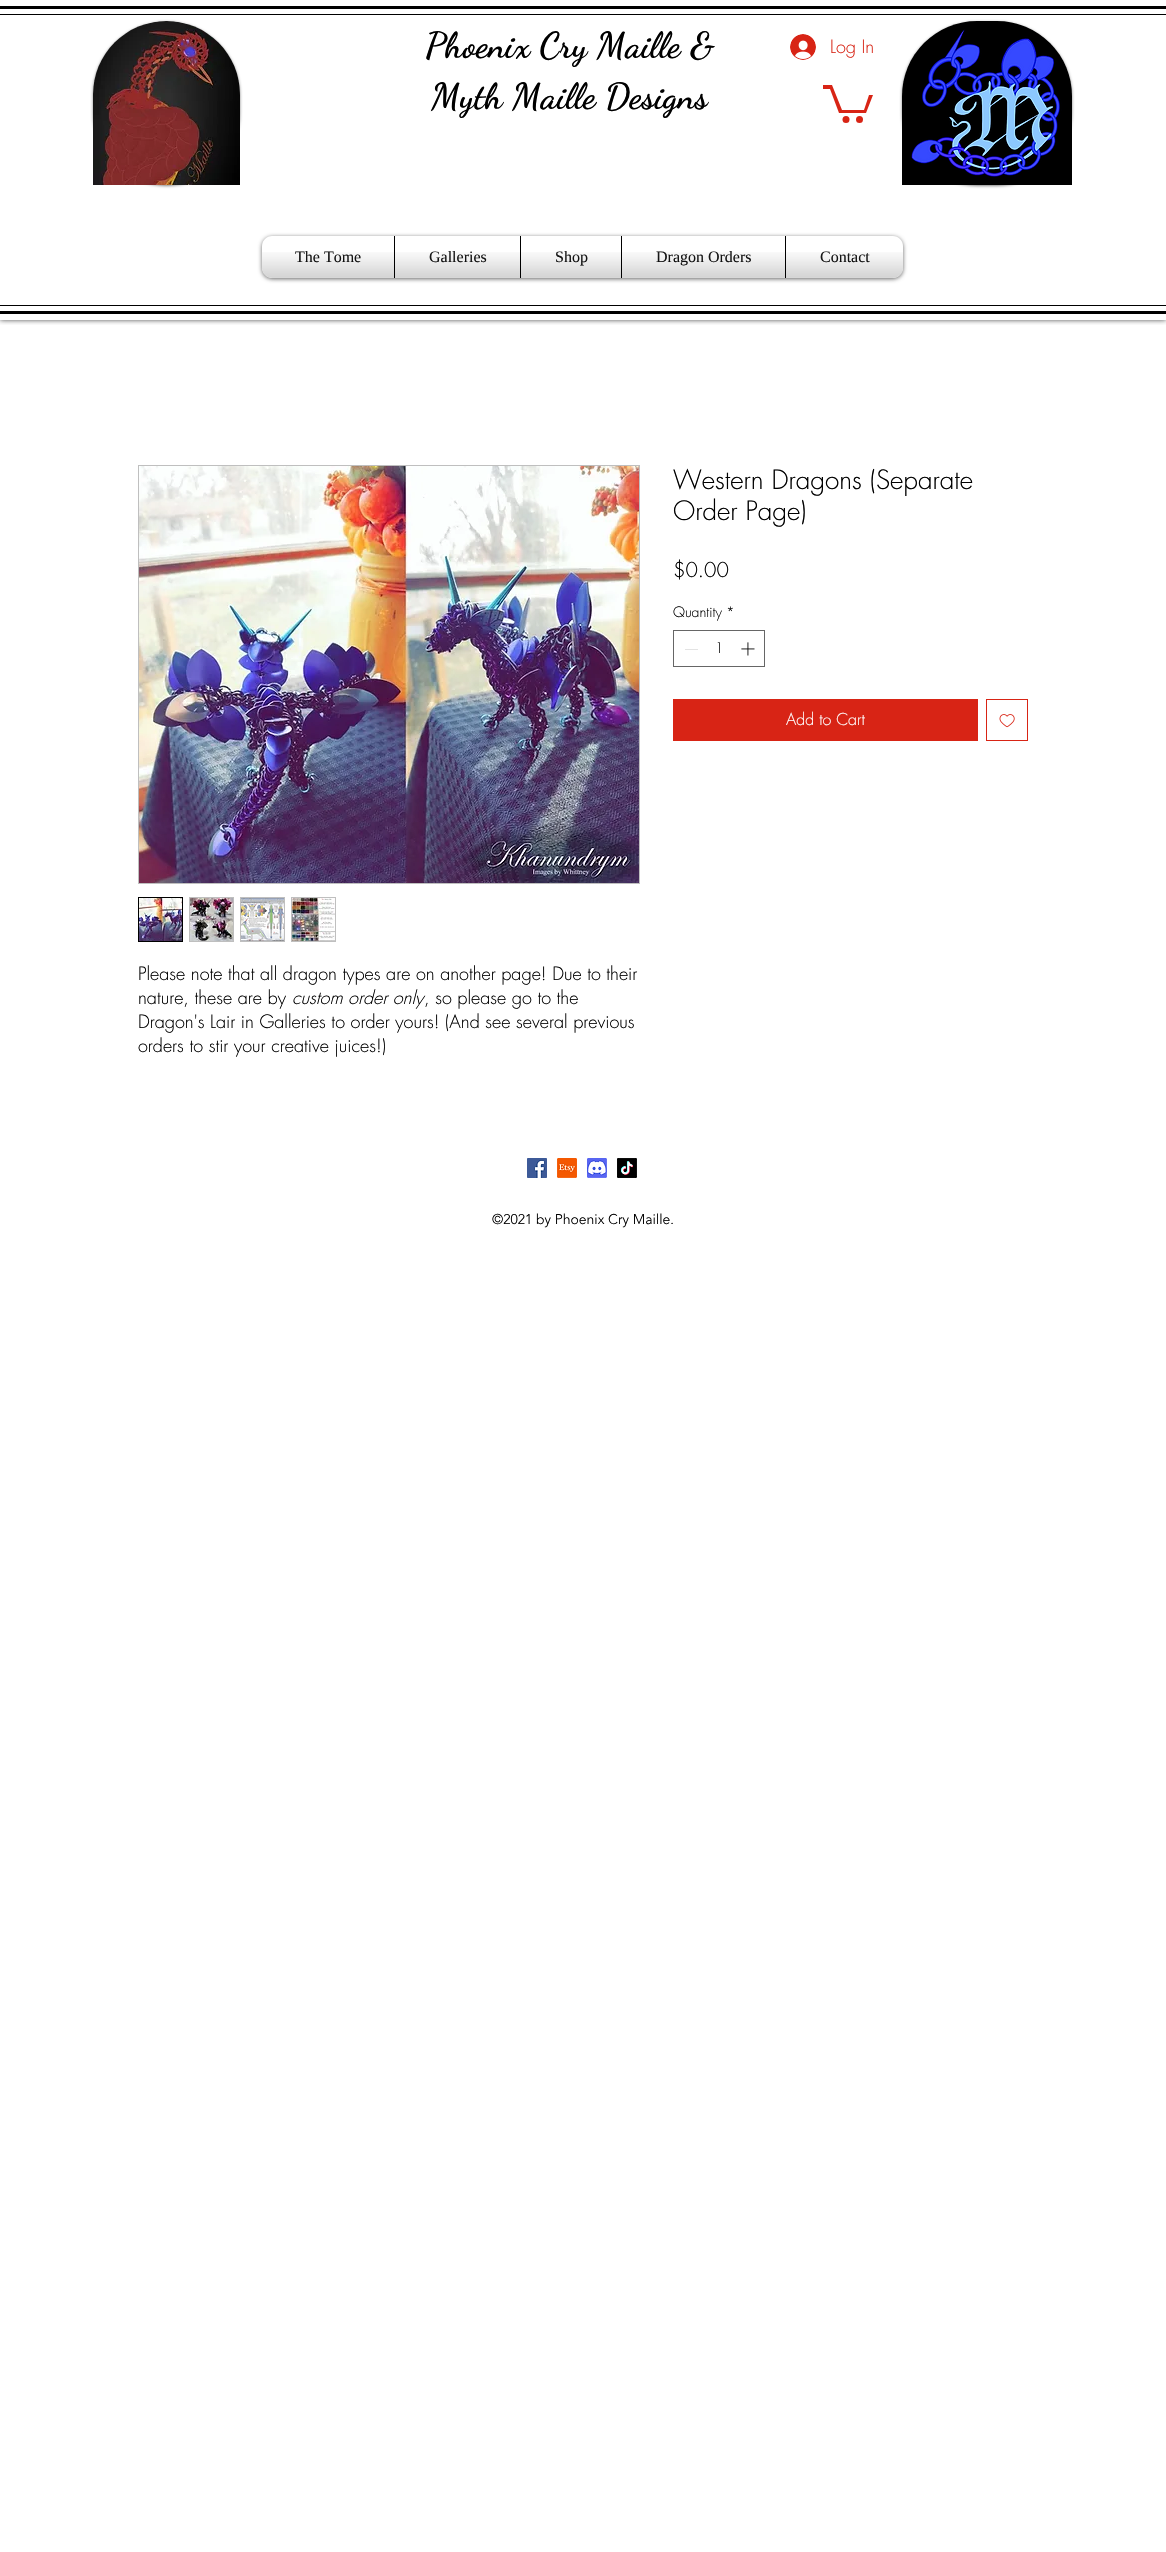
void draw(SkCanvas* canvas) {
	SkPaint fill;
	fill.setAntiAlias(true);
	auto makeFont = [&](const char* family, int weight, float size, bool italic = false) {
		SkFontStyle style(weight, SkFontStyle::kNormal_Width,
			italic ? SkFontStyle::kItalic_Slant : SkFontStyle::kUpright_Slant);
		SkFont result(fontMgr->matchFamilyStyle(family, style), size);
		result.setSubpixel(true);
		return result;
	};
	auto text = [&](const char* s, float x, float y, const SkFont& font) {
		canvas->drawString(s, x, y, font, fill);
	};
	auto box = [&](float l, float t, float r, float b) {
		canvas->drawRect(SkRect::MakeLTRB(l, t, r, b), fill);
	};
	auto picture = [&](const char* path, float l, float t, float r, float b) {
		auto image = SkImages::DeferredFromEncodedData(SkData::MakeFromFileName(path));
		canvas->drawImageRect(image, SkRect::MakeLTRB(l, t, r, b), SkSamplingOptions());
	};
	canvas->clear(0xFFFFFFFF);
	canvas->save();
	canvas->clipRect(SkRect::MakeLTRB(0, 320, 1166, 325));
	fill.setColor(0xB3000000);
	fill.setMaskFilter(SkMaskFilter::MakeBlur(kNormal_SkBlurStyle, 2.5f));
	canvas->drawRect(SkRect::MakeLTRB(0, 0, 1166, 320), fill);
	fill.setMaskFilter(nullptr);
	canvas->restore();
	fill.setColor(0xFF000000);
	box(0, 6, 1166, 9);
	box(0, 311, 1166, 314);
	box(0, 14, 1166, 15);
	box(0, 305, 1166, 306);
	fill.setColor(0x80000000);
	fill.setMaskFilter(SkMaskFilter::MakeBlur(kNormal_SkBlurStyle, 1.5f));
	canvas->drawRoundRect(SkRect::MakeLTRB(93, 22, 240, 186), 73.5f, 73.5f, fill);
	fill.setMaskFilter(nullptr);
	fill.setColor(0xFFFFFFFF);
	canvas->drawPath(SkPathBuilder().moveTo(166.5f, 21).cubicTo(207, 21, 240, 54, 240, 94.5f).lineTo(240, 185).lineTo(93, 185).lineTo(93, 94.5f).cubicTo(93, 54, 126, 21, 166.5f, 21).close().detach(), fill);
	picture("image0.png", 93, 21, 240, 185);
	picture("image1.png", 790, 34, 816, 60);
	fill.setColor(0x80000000);
	fill.setMaskFilter(SkMaskFilter::MakeBlur(kNormal_SkBlurStyle, 1.5f));
	canvas->drawRoundRect(SkRect::MakeLTRB(902, 22, 1072, 186), 75, 75, fill);
	fill.setMaskFilter(nullptr);
	fill.setColor(0xFFFFFFFF);
	canvas->drawPath(SkPathBuilder().moveTo(977, 21).lineTo(997, 21).cubicTo(1038.5f, 21, 1072, 54.5f, 1072, 96).lineTo(1072, 185).lineTo(902, 185).lineTo(902, 96).cubicTo(902, 54.5f, 935.5f, 21, 977, 21).close().detach(), fill);
	picture("image2.png", 902, 21, 1072, 185);
	fill.setColor(0xFFD82415);
	canvas->drawPath(SkPathBuilder().moveTo(873, 95).lineTo(866, 113).lineTo(839, 113).lineTo(830, 89).lineTo(823, 89).lineTo(823, 85).lineTo(832, 85).lineTo(842, 110).lineTo(864, 110).lineTo(869, 95).detach(), fill);
	canvas->drawCircle(859.5f, 119.5f, 3.5f, fill);
	canvas->drawCircle(846, 119.5f, 3.5f, fill);
	fill.setColor(0x99000000);
	fill.setMaskFilter(SkMaskFilter::MakeBlur(kNormal_SkBlurStyle, 2));
	canvas->drawRoundRect(SkRect::MakeLTRB(262, 237, 903, 279), 10, 10, fill);
	fill.setMaskFilter(nullptr);
	picture("image3.png", 262, 268, 903, 278);
	fill.setColor(0xFFFFFFFF);
	canvas->drawPath(SkPathBuilder().moveTo(272, 236).lineTo(394, 236).lineTo(394, 278).lineTo(272, 278).cubicTo(266.5f, 278, 262, 273.5f, 262, 268).lineTo(262, 246).cubicTo(262, 240.5f, 266.5f, 236, 272, 236).close().detach(), fill);
	box(395, 236, 520, 278);
	fill.setColor(0xFF000000);
	box(394, 236, 395, 278);
	fill.setColor(0xFFFFFFFF);
	box(521, 236, 621, 278);
	fill.setColor(0xFF000000);
	box(520, 236, 521, 278);
	fill.setColor(0xFFFFFFFF);
	box(622, 236, 785, 278);
	fill.setColor(0xFF000000);
	box(621, 236, 622, 278);
	fill.setColor(0xFFFFFFFF);
	canvas->drawPath(SkPathBuilder().moveTo(785, 236).lineTo(893, 236).cubicTo(898.5f, 236, 903, 240.5f, 903, 246).lineTo(903, 268).cubicTo(903, 273.5f, 898.5f, 278, 893, 278).lineTo(785, 278).close().detach(), fill);
	fill.setColor(0xFF000000);
	box(785, 236, 786, 278);
	fill.setStyle(SkPaint::kStroke_Style);
	fill.setStrokeWidth(1);
	fill.setColor(0xFF666666);
	canvas->drawRect(SkRect::MakeLTRB(673.5f, 630.5f, 764.5f, 666.5f), fill);
	fill.setStyle(SkPaint::kFill_Style);
	fill.setColor(0xFFE3E3E3);
	box(685, 649, 698, 650);
	picture("image14.png", 741, 642, 755, 656);
	fill.setColor(0xFFD82415);
	box(673, 699, 978, 741);
	fill.setStyle(SkPaint::kStroke_Style);
	canvas->drawRect(SkRect::MakeLTRB(986.5f, 699.5f, 1027.5f, 740.5f), fill);
	picture("image15.png", 999, 714, 1015, 728);
	fill.setColor(0xFFBFBFBF);
	canvas->drawRect(SkRect::MakeLTRB(138.5f, 465.5f, 639.5f, 883.5f), fill);
	picture("image16.png", 139, 466, 639, 883);
	fill.setColor(0xFF000000);
	canvas->drawRect(SkRect::MakeLTRB(138.5f, 897.5f, 182.5f, 941.5f), fill);
	picture("image17.png", 139, 898, 182, 941);
	fill.setStyle(SkPaint::kFill_Style);
	fill.setColor(0xFFBFBFBF);
	box(189, 897, 234, 942);
	picture("image18.png", 190, 898, 233, 941);
	box(240, 897, 285, 942);
	picture("image19.png", 241, 898, 284, 941);
	box(291, 897, 336, 942);
	picture("image20.png", 292, 898, 335, 941);
	picture("image21.png", 527, 1158, 547, 1178);
	picture("image22.png", 557, 1158, 577, 1178);
	picture("image23.png", 587, 1158, 607, 1178);
	picture("image24.png", 617, 1158, 637, 1178);
	auto font1 = makeFont("Dancing Script", 700, 36);
	fill.setColor(0xFF000000);
	text("Phoenix Cry Maille &", 425, 57, font1);
	text("Myth Maille Designs", 431, 108, font1);
	auto font2 = makeFont("futura", 300, 18);
	fill.setColor(0xFFD82415);
	text("Log In", 830, 53, font2);
	auto font3 = makeFont("Liberation Serif", 400, 16);
	fill.setColor(0xFF000000);
	text("The Tome", 295, 262, font3);
	picture("image4.png", 295, 250, 361, 262);
	picture("image5.png", 262, 252, 394, 278);
	text("Galleries", 429, 262, font3);
	picture("image6.png", 429, 250, 486, 262);
	picture("image7.png", 395, 252, 520, 278);
	text("Shop", 555, 262, font3);
	picture("image8.png", 555, 250, 587, 265);
	picture("image9.png", 521, 252, 621, 278);
	text("Dragon Orders", 656, 262, font3);
	picture("image10.png", 656, 250, 751, 266);
	picture("image11.png", 622, 252, 785, 278);
	text("Contact", 820, 262, font3);
	picture("image12.png", 820, 251, 869, 262);
	picture("image13.png", 786, 252, 903, 278);
	auto font4 = makeFont("futura", 300, 26);
	text("Western Dragons (Separate", 673, 489, font4);
	text("Order Page)", 673, 520, font4);
	auto font5 = makeFont("futura", 300, 20);
	text("$0.00", 673, 577, font5);
	auto font6 = makeFont("futura", 300, 14);
	text("Quantity", 673, 617, font6);
	text("*", 726, 617, font6);
	text("1", 715, 653, font6);
	auto font7 = makeFont("futura", 300, 16);
	fill.setColor(0xFFFFFFFF);
	text("Add to Cart", 786, 725, font7);
	fill.setColor(0xFF000000);
	text("Please note that all dragon types are on another page! Due to their", 138, 980, font2);
	text("nature, these are by", 138, 1004, font2);
	auto font8 = makeFont("futura", 300, 18, true);
	text("custom order only", 292, 1004, font8);
	text(", so please go to the", 424, 1004, font2);
	text("Dragon's Lair in Galleries to order yours! (And see several previous", 138, 1028, font2);
	text("orders to stir your creative juices!)", 138, 1052, font2);
	auto font9 = makeFont("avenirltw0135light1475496", 300, 14);
	text("©2021 by Phoenix Cry Maille.", 492, 1224, font9);
}
